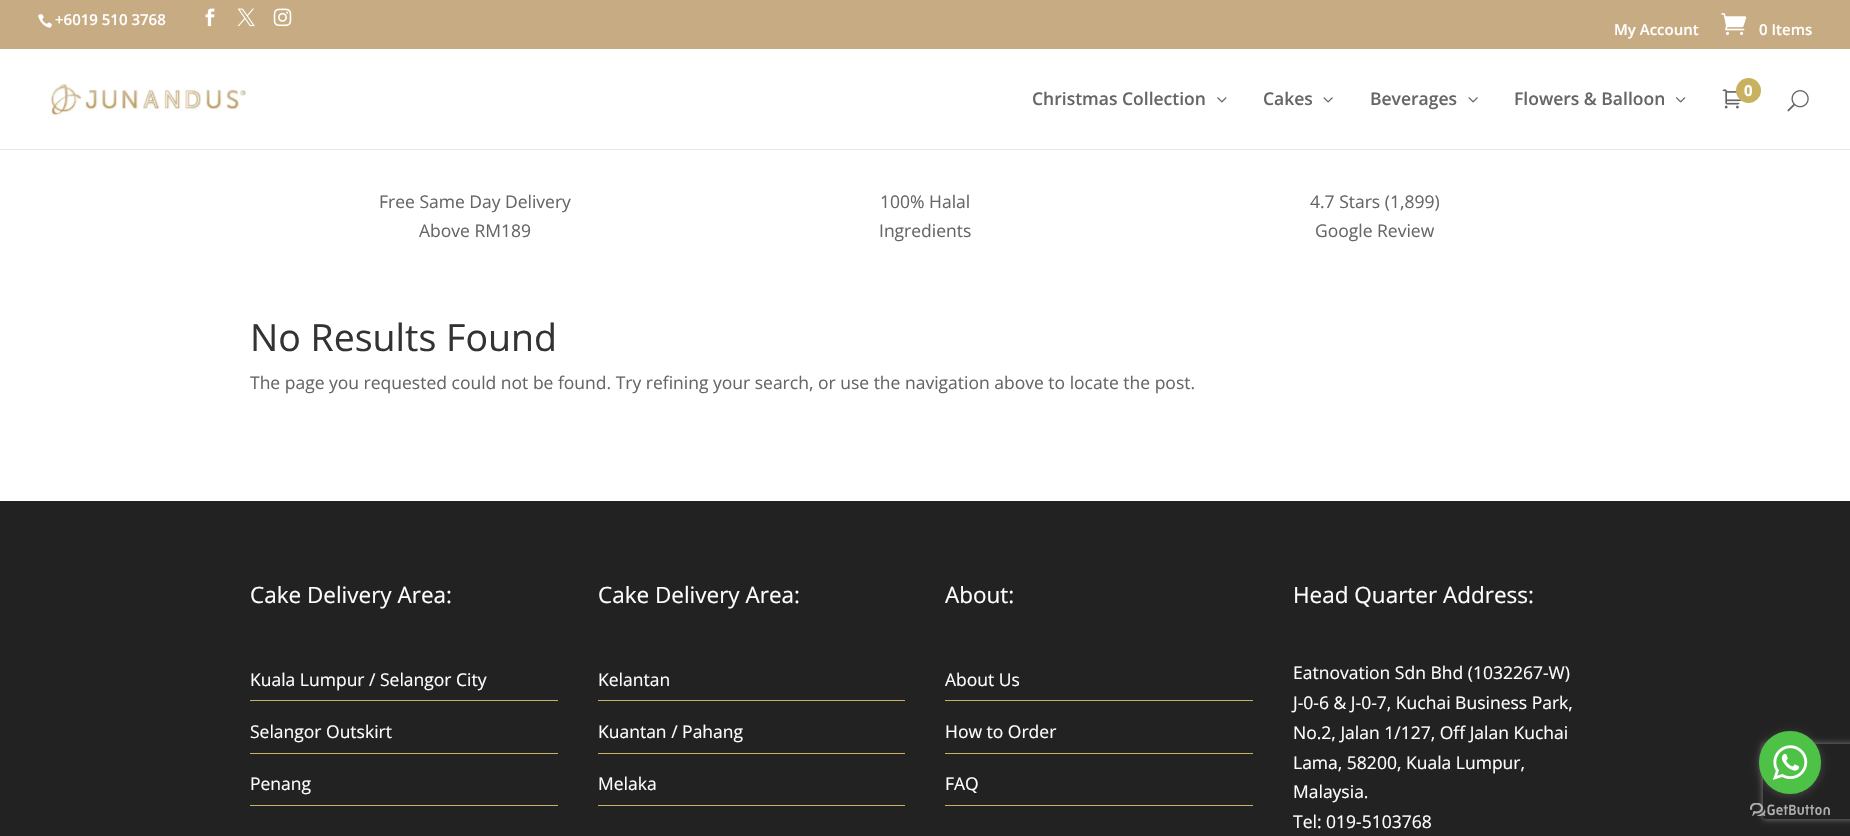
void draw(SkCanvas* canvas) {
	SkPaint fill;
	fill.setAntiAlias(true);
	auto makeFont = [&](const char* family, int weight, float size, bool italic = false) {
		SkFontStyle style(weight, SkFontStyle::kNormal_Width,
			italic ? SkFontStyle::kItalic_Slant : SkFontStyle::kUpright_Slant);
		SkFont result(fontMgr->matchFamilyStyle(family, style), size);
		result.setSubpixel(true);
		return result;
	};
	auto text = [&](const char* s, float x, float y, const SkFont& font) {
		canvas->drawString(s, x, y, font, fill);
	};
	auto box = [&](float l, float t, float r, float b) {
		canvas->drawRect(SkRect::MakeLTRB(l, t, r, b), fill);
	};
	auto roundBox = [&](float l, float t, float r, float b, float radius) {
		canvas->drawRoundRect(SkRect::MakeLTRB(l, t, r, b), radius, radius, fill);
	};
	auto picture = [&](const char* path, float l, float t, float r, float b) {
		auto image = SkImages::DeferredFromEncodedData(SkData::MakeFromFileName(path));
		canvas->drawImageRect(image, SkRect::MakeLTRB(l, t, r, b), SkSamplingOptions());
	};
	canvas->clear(0xFFFFFFFF);
	fill.setColor(0xFFC7AB83);
	box(0, 0, 1850, 49);
	picture("image0.png", 38, 14, 52, 28);
	picture("image1.png", 205, 8, 215, 27);
	picture("image2.png", 237, 8, 255, 27);
	picture("image3.png", 273, 8, 292, 27);
	picture("image4.png", 1721, 13, 1747, 35);
	fill.setColor(0xFFE6E6E6);
	box(0, 149, 1850, 150);
	picture("image5.png", 50, 83, 247, 116);
	picture("image6.png", 1217, 97, 1227, 103);
	picture("image7.png", 1323, 97, 1333, 103);
	picture("image7.png", 1468, 97, 1478, 103);
	picture("image8.png", 1676, 97, 1686, 103);
	picture("image9.png", 1722, 89, 1742, 109);
	fill.setColor(0xFFC9B25F);
	canvas->drawCircle(1748.5f, 90.5f, 12.5f, fill);
	picture("image10.png", 1787, 90, 1809, 112);
	fill.setColor(0xFF222222);
	box(0, 501, 1850, 836);
	fill.setColor(0xFFC9B25F);
	box(250, 700, 558, 701);
	box(250, 753, 558, 754);
	box(250, 805, 558, 806);
	box(598, 700, 905, 701);
	box(598, 753, 905, 754);
	box(598, 805, 905, 806);
	box(945, 700, 1253, 701);
	box(945, 753, 1253, 754);
	box(945, 805, 1253, 806);
	canvas->save();
	canvas->clipPath(SkPathBuilder(SkPathFillType::kEvenOdd).moveTo(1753, 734).lineTo(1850, 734).lineTo(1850, 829).lineTo(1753, 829).close().moveTo(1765.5f, 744).lineTo(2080.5f, 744).cubicTo(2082, 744, 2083, 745, 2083, 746.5f).lineTo(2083, 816.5f).cubicTo(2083, 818, 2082, 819, 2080.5f, 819).lineTo(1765.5f, 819).cubicTo(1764, 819, 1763, 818, 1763, 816.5f).lineTo(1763, 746.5f).cubicTo(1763, 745, 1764, 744, 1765.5f, 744).close().detach(), true);
	fill.setColor(0xFF808080);
	fill.setMaskFilter(SkMaskFilter::MakeBlur(kNormal_SkBlurStyle, 3));
	canvas->drawRoundRect(SkRect::MakeLTRB(1763, 744, 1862, 819), 2.5f, 2.5f, fill);
	fill.setMaskFilter(nullptr);
	canvas->restore();
	picture("image12.png", 1750, 803, 1830, 816);
	fill.setColor(0x66888888);
	fill.setMaskFilter(SkMaskFilter::MakeBlur(kNormal_SkBlurStyle, 4.5f));
	canvas->drawRoundRect(SkRect::MakeLTRB(1759, 733, 1821, 795), 31, 31, fill);
	fill.setMaskFilter(nullptr);
	fill.setColor(0xFF4DC247);
	roundBox(1759, 731, 1821, 794, 31);
	picture("image11.png", 1772, 745, 1808, 780);
	auto font1 = makeFont("Open Sans", 600, 15);
	fill.setColor(0xFFFFFFFF);
	text("+6019 510 3768", 55, 25, font1);
	text("My Account", 1614, 35, font1);
	text("0 Items", 1759, 35, font1);
	auto font2 = makeFont("Open Sans", 600, 17.5f);
	fill.setColor(0xFF666666);
	text("Christmas Collection", 1032, 105, font2);
	text("Cakes", 1263, 105, font2);
	text("Beverages", 1370, 105, font2);
	text("Flowers & Balloon", 1514, 105, font2);
	auto font3 = makeFont("Open Sans", 700, 15);
	fill.setColor(0xFFFFFFFF);
	text("0", 1744, 96, font3);
	auto font4 = makeFont("Open Sans", 400, 17.5f);
	fill.setColor(0xFF666666);
	text("Free Same Day Delivery", 379, 208, font4);
	text("Above RM189", 419, 237, font4);
	text("100% Halal", 880, 208, font4);
	text("Ingredients", 879, 237, font4);
	text("4.7 Stars (1,899)", 1310, 208, font4);
	text("Google Review", 1315, 237, font4);
	auto font5 = makeFont("Open Sans", 400, 37.5f);
	fill.setColor(0xFF333333);
	text("No Results Found", 250, 351, font5);
	fill.setColor(0xFF666666);
	text("The page you requested could not be found. Try refining your search, or use the navigation above to locate the post.", 250, 389, font4);
	auto font6 = makeFont("Open Sans", 400, 22.5f);
	fill.setColor(0xFFFFFFFF);
	text("Cake Delivery Area:", 250, 603, font6);
	text("Kuala Lumpur / Selangor City", 250, 686, font4);
	text("Selangor Outskirt", 250, 738, font4);
	text("Penang", 250, 790, font4);
	text("Cake Delivery Area:", 598, 603, font6);
	text("Kelantan", 598, 686, font4);
	text("Kuantan / Pahang", 598, 738, font4);
	text("Melaka", 598, 790, font4);
	text("About:", 945, 603, font6);
	text("About Us", 945, 686, font4);
	text("How to Order", 945, 738, font4);
	text("FAQ", 945, 790, font4);
	text("Head Quarter Address:", 1293, 603, font6);
	text("Eatnovation Sdn Bhd (1032267-W)", 1293, 679, font4);
	text("J-0-6 & J-0-7, Kuchai Business Park,", 1293, 709, font4);
	text("No.2, Jalan 1/127, Off Jalan Kuchai", 1293, 739, font4);
	text("Lama, 58200, Kuala Lumpur,", 1293, 769, font4);
	text("Malaysia.", 1293, 798, font4);
	text("Tel: 019-5103768", 1293, 828, font4);
}
